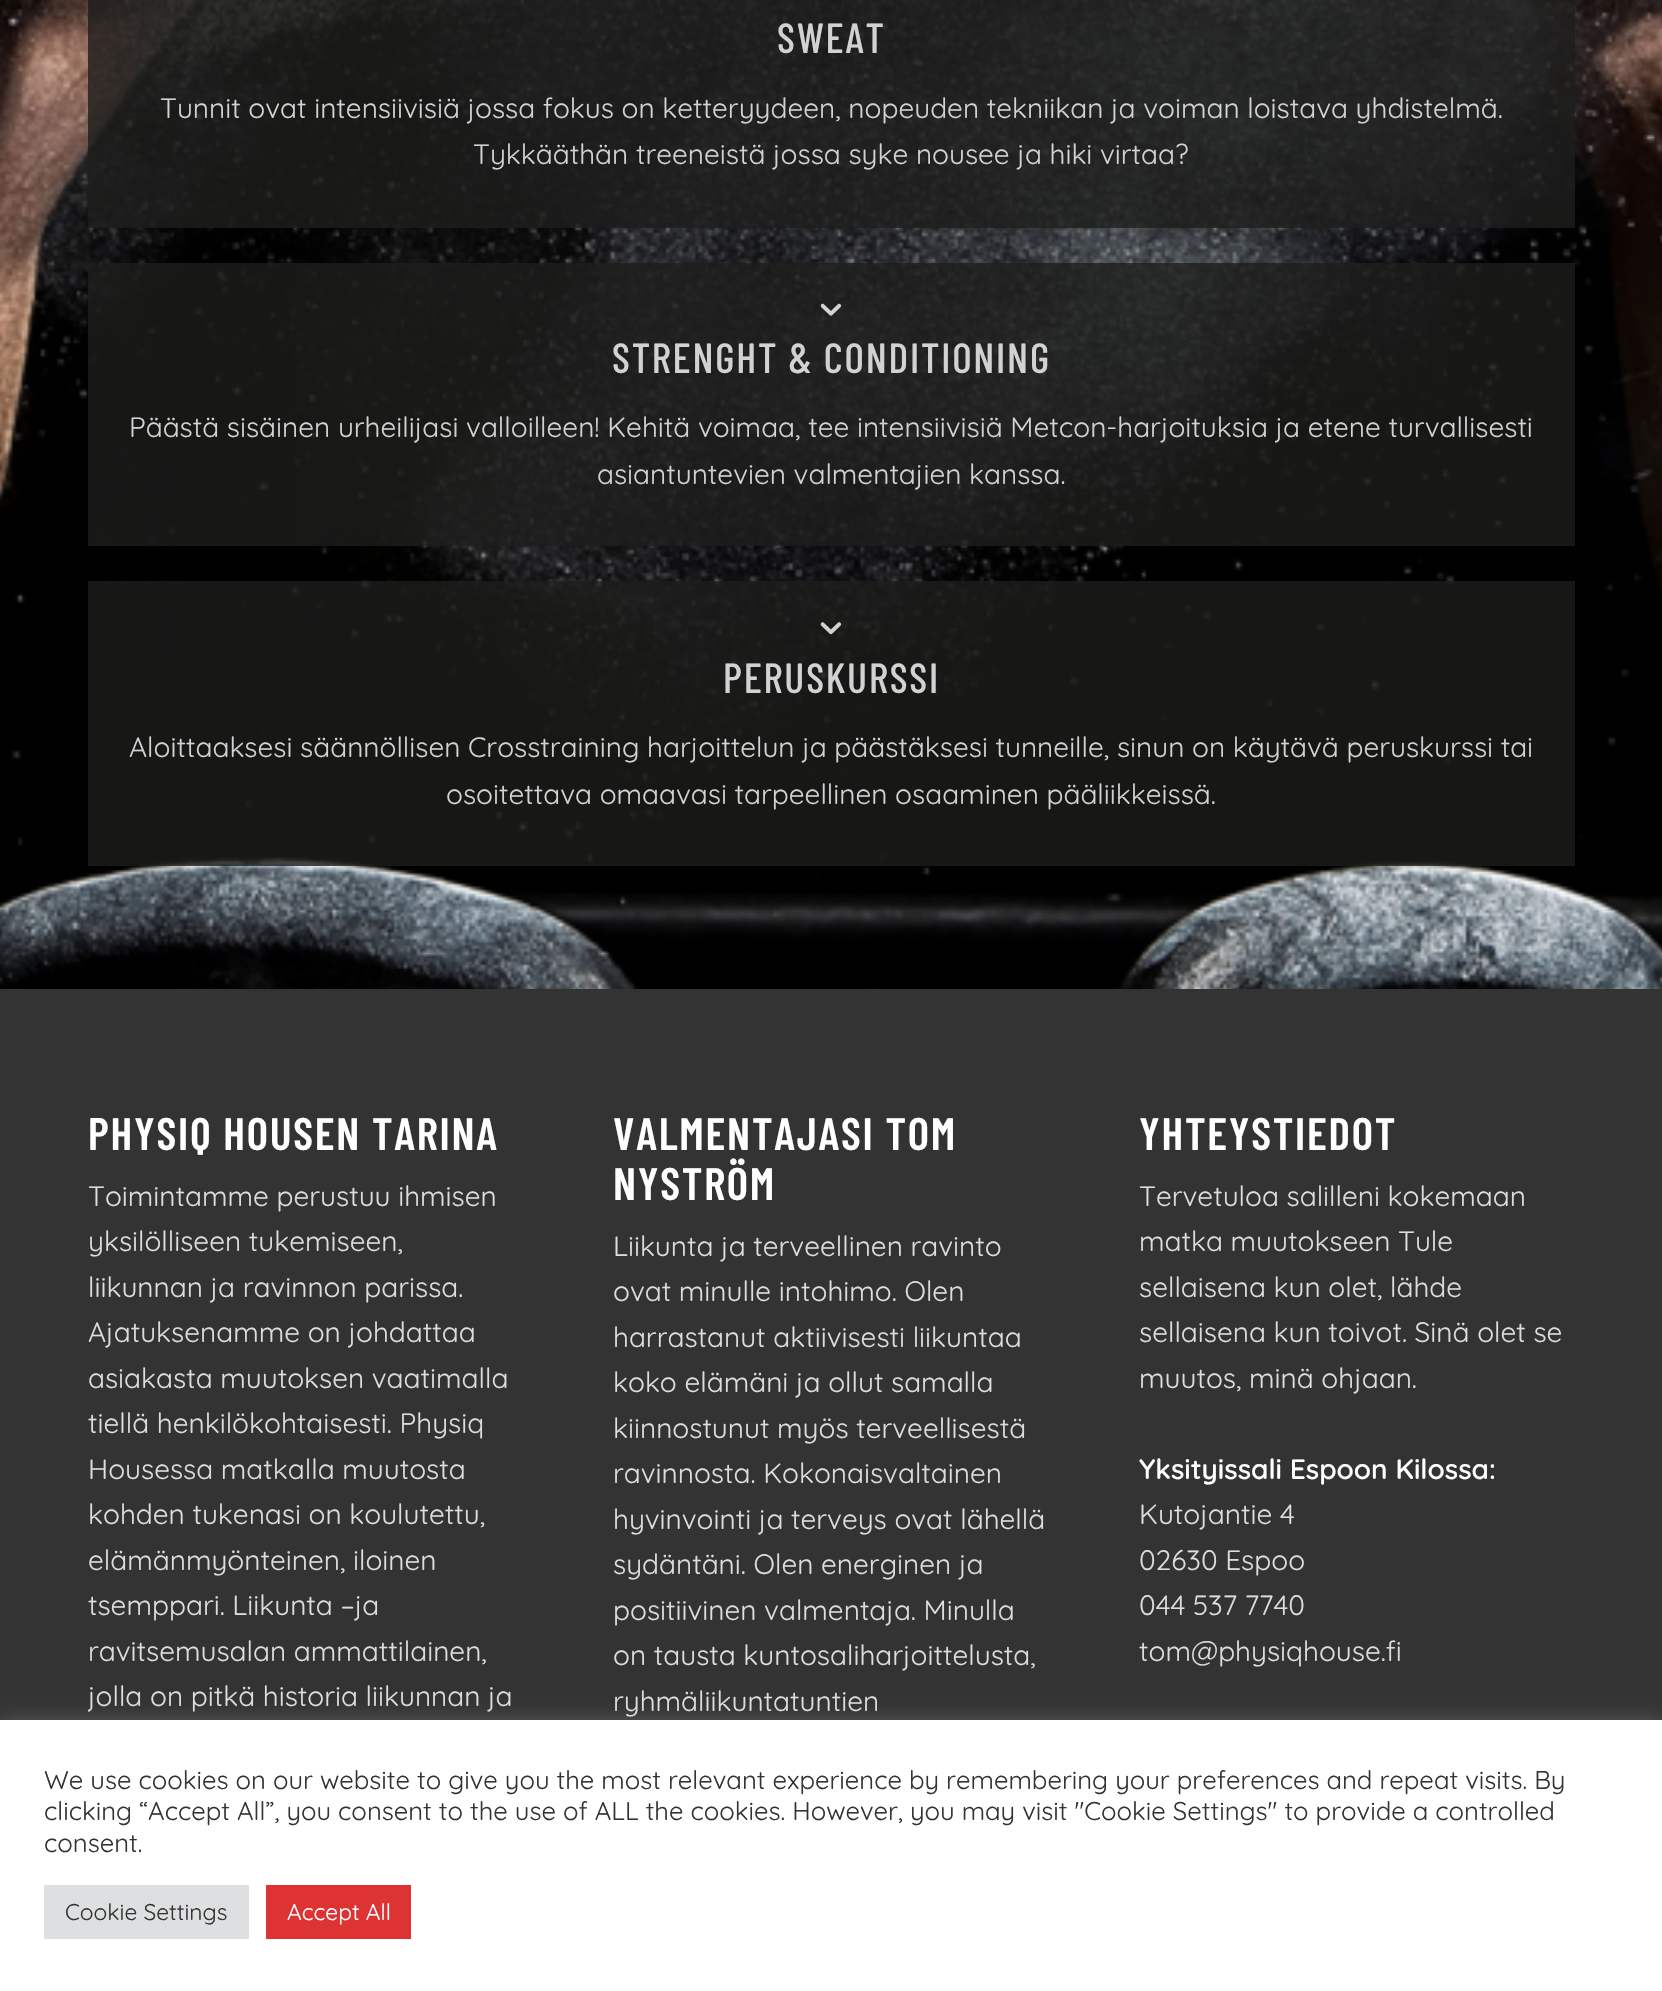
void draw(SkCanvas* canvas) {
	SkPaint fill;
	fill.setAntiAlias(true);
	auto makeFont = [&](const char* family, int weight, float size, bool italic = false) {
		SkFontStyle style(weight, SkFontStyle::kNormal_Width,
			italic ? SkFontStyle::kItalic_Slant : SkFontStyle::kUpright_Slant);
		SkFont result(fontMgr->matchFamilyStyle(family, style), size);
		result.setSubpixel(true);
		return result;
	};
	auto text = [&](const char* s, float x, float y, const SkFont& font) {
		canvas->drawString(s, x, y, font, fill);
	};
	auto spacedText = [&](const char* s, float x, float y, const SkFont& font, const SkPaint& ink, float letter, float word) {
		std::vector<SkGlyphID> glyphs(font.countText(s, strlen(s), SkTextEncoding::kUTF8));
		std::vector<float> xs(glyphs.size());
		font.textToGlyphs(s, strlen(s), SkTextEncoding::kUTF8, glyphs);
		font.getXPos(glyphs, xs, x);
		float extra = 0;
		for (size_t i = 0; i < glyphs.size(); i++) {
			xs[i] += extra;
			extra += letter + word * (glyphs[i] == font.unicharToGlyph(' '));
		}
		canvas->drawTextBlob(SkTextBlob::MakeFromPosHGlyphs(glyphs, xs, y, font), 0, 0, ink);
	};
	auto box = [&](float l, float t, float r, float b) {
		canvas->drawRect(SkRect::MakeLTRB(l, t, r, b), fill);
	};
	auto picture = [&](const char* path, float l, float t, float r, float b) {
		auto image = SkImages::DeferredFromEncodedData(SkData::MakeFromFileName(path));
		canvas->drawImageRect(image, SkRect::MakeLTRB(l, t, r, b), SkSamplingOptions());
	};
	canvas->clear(0xFFFFFFFF);
	picture("image0.png", 0, 0, 1662, 989);
	fill.setColor(0xCC1D1D1B);
	box(88, 0, 1575, 228);
	box(88, 263, 1575, 546);
	picture("image1.png", 820, 303, 841, 316);
	box(88, 581, 1575, 866);
	picture("image2.png", 820, 622, 841, 635);
	fill.setColor(0xFF333333);
	box(0, 989, 1662, 1720);
	fill.setColor(0x4DACABAB);
	fill.setMaskFilter(SkMaskFilter::MakeBlur(kNormal_SkBlurStyle, 9));
	canvas->drawRect(SkRect::MakeLTRB(0, 1719, 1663, 1990), fill);
	fill.setMaskFilter(nullptr);
	fill.setColor(0xFFFFFFFF);
	box(0, 1720, 1662, 1991);
	fill.setColor(0xFFDEDFE0);
	box(44, 1885, 249, 1939);
	fill.setColor(0xFFDD3333);
	box(266, 1885, 411, 1939);
	auto font1 = makeFont("Barlow Condensed", 500, 42);
	fill.setColor(0xFFD2D2D2);
	spacedText("SWEAT", 777, 53, font1, fill, 1.75f, 0);
	auto font2 = makeFont("Quicksand", 400, 28);
	text("Tunnit ovat intensiivisiä jossa fokus on ketteryydeen, nopeuden tekniikan ja voiman loistava yhdistelmä.", 160, 118, font2);
	text("Tykkääthän treeneistä jossa syke nousee ja hiki virtaa?", 473, 164, font2);
	spacedText("STRENGHT & CONDITIONING", 612, 373, font1, fill, 1.75f, 0);
	text("Päästä sisäinen urheilijasi valloilleen! Kehitä voimaa, tee intensiivisiä Metcon-harjoituksia ja etene turvallisesti", 129, 437, font2);
	text("asiantuntevien valmentajien kanssa.", 597, 484, font2);
	spacedText("PERUSKURSSI", 723, 693, font1, fill, 1.75f, 0);
	text("Aloittaaksesi säännöllisen Crosstraining harjoittelun ja päästäksesi tunneille, sinun on käytävä peruskurssi tai", 129, 757, font2);
	text("osoitettava omaavasi tarpeellinen osaaminen pääliikkeissä.", 446, 804, font2);
	auto font3 = makeFont("Barlow Condensed", 600, 45.5f);
	fill.setColor(0xFFFFFFFF);
	spacedText("PHYSIQ HOUSEN TARINA", 88, 1150, font3, fill, 1.75f, 0);
	fill.setColor(0xFFDDDDDD);
	text("Toimintamme perustuu ihmisen", 88, 1206, font2);
	text("yksilölliseen tukemiseen,", 88, 1251, font2);
	text("liikunnan ja ravinnon parissa.", 88, 1297, font2);
	text("Ajatuksenamme on johdattaa", 88, 1342, font2);
	text("asiakasta muutoksen vaatimalla", 88, 1388, font2);
	text("tiellä henkilökohtaisesti. Physiq", 88, 1433, font2);
	text("Housessa matkalla muutosta", 88, 1479, font2);
	text("kohden tukenasi on koulutettu,", 88, 1524, font2);
	text("elämänmyönteinen, iloinen", 88, 1570, font2);
	text("tsemppari. Liikunta –ja", 88, 1615, font2);
	text("ravitsemusalan ammattilainen,", 88, 1661, font2);
	canvas->save();
	canvas->clipRect(SkRect::MakeLTRB(88, 1069, 523, 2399));
	text("jolla on pitkä historia liikunnan ja", 88, 1706, font2);
	canvas->restore();
	fill.setColor(0xFFFFFFFF);
	spacedText("VALMENTAJASI TOM", 613, 1150, font3, fill, 1.75f, 0);
	spacedText("NYSTRÖM", 613, 1200, font3, fill, 1.75f, 0);
	fill.setColor(0xFFDDDDDD);
	text("Liikunta ja terveellinen ravinto", 613, 1256, font2);
	text("ovat minulle intohimo. Olen", 613, 1301, font2);
	text("harrastanut aktiivisesti liikuntaa", 613, 1347, font2);
	text("koko elämäni ja ollut samalla", 613, 1392, font2);
	text("kiinnostunut myös terveellisestä", 613, 1438, font2);
	text("ravinnosta. Kokonaisvaltainen", 613, 1483, font2);
	text("hyvinvointi ja terveys ovat lähellä", 613, 1529, font2);
	text("sydäntäni. Olen energinen ja", 613, 1574, font2);
	text("positiivinen valmentaja. Minulla", 613, 1620, font2);
	text("on tausta kuntosaliharjoittelusta,", 613, 1665, font2);
	text("ryhmäliikuntatuntien", 613, 1711, font2);
	fill.setColor(0xFFFFFFFF);
	spacedText("YHTEYSTIEDOT", 1139, 1150, font3, fill, 1.75f, 0);
	fill.setColor(0xFFDDDDDD);
	text("Tervetuloa salilleni kokemaan", 1139, 1206, font2);
	text("matka muutokseen Tule", 1139, 1251, font2);
	text("sellaisena kun olet, lähde", 1139, 1297, font2);
	text("sellaisena kun toivot. Sinä olet se", 1139, 1342, font2);
	text("muutos, minä ohjaan.", 1139, 1388, font2);
	auto font4 = makeFont("Quicksand", 600, 28);
	fill.setColor(0xFFFFFFFF);
	text("Yksityissali Espoon Kilossa:", 1139, 1479, font4);
	fill.setColor(0xFFDDDDDD);
	text("Kutojantie 4", 1139, 1524, font2);
	text("02630 Espoo", 1139, 1570, font2);
	text("044 537 7740", 1139, 1615, font2);
	text("tom@physiqhouse.fi", 1139, 1661, font2);
	auto font5 = makeFont("Quicksand", 400, 25.67f);
	fill.setColor(0xFF333333);
	text("We use cookies on our website to give you the most relevant experience by remembering your preferences and repeat visits. By", 44, 1789, font5);
	text("clicking “Accept All”, you consent to the use of ALL the cookies. However, you may visit \"Cookie Settings\" to provide a controlled", 44, 1820, font5);
	text("consent.", 44, 1852, font5);
	auto font6 = makeFont("Quicksand", 400, 22.75f);
	text("Cookie Settings", 65, 1920, font6);
	fill.setColor(0xFFFFFFFF);
	text("Accept All", 287, 1920, font6);
}
